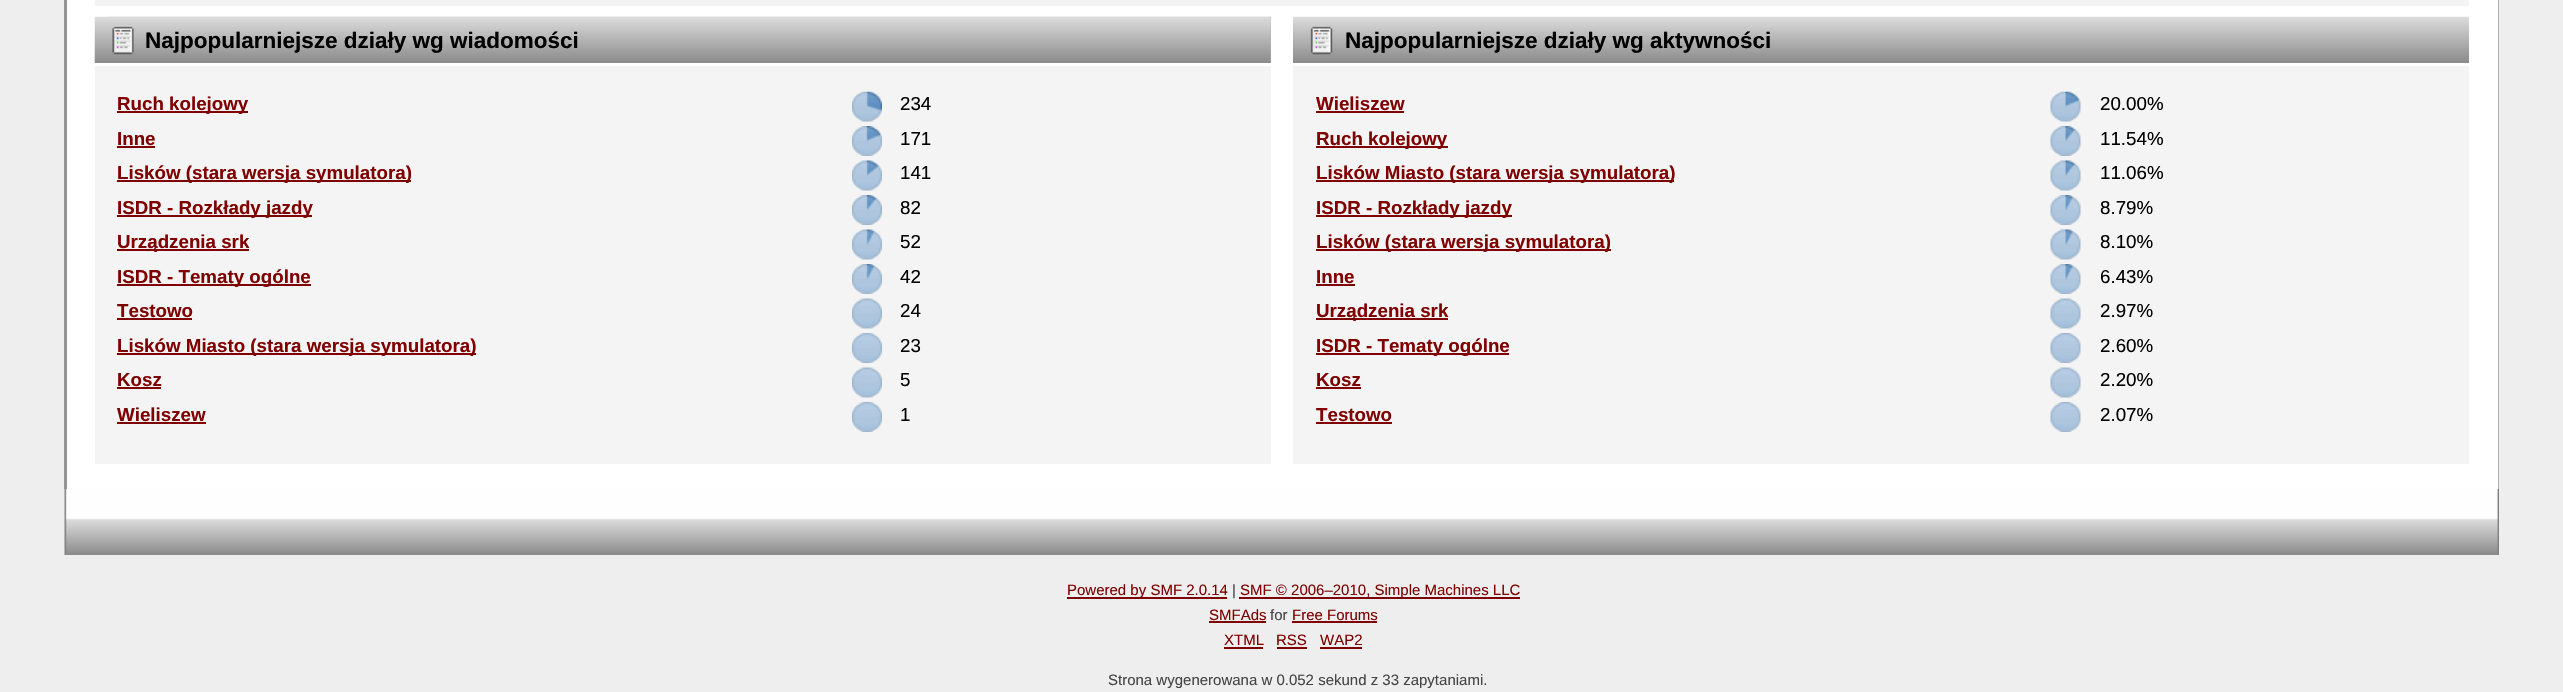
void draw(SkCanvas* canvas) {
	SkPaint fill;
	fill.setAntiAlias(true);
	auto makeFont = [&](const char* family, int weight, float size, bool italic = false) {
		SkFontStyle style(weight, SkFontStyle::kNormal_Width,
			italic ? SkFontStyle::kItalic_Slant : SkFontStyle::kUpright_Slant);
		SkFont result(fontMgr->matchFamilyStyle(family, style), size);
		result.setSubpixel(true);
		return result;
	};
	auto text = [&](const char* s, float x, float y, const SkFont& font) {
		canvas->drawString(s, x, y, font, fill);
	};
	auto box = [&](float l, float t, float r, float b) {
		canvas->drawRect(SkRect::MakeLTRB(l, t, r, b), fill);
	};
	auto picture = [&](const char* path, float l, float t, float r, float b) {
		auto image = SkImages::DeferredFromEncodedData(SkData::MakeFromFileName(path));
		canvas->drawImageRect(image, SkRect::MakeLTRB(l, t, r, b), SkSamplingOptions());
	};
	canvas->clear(0xFFEEEEEE);
	fill.setColor(0xFFFFFFFF);
	box(67, 0, 2498, 489);
	fill.setColor(0xFF959595);
	box(64, 0, 67, 489);
	fill.setColor(0xFFB0B0B0);
	box(2498, 0, 2499, 489);
	fill.setColor(0xFFF4F4F4);
	box(95, 0, 2469, 6);
	fill.setColor(0xFFB7B7B7);
	box(1270, 17, 1271, 63);
	picture("image0.png", 94, 16, 1271, 63);
	picture("image1.png", 108, 16, 1271, 63);
	picture("image2.png", 112, 26, 134, 55);
	fill.setColor(0xFFF4F4F4);
	box(95, 66, 1271, 464);
	fill.setColor(0xFF800000);
	box(117, 111, 248, 113);
	picture("image3.png", 852, 91, 882, 122);
	box(117, 146, 155, 148);
	picture("image4.png", 852, 126, 882, 156);
	box(117, 180, 411, 182);
	picture("image5.png", 852, 160, 882, 191);
	box(117, 215, 312, 217);
	picture("image6.png", 852, 195, 882, 225);
	box(117, 249, 249, 251);
	picture("image7.png", 852, 229, 882, 260);
	box(117, 284, 311, 286);
	picture("image8.png", 852, 264, 882, 294);
	box(117, 318, 192, 320);
	picture("image9.png", 852, 298, 882, 329);
	box(117, 353, 476, 355);
	picture("image10.png", 852, 333, 882, 363);
	box(117, 387, 161, 389);
	picture("image9.png", 852, 367, 882, 398);
	box(117, 422, 206, 424);
	picture("image10.png", 852, 402, 882, 432);
	picture("image11.png", 1293, 16, 2469, 63);
	picture("image12.png", 1310, 26, 1333, 55);
	fill.setColor(0xFFF4F4F4);
	box(1293, 66, 2469, 464);
	fill.setColor(0xFF800000);
	box(1316, 111, 1404, 113);
	picture("image13.png", 2050, 91, 2081, 122);
	box(1316, 146, 1448, 148);
	picture("image14.png", 2050, 126, 2081, 156);
	box(1316, 180, 1674, 182);
	picture("image15.png", 2050, 160, 2081, 191);
	box(1316, 215, 1512, 217);
	picture("image16.png", 2050, 195, 2081, 225);
	box(1316, 249, 1611, 251);
	picture("image17.png", 2050, 229, 2081, 260);
	box(1316, 284, 1355, 286);
	picture("image16.png", 2050, 264, 2081, 294);
	box(1316, 318, 1448, 320);
	picture("image18.png", 2050, 298, 2081, 329);
	box(1316, 353, 1509, 355);
	picture("image19.png", 2050, 333, 2081, 363);
	box(1316, 387, 1361, 389);
	picture("image18.png", 2050, 367, 2081, 398);
	box(1316, 422, 1392, 424);
	picture("image19.png", 2050, 402, 2081, 432);
	picture("image20.png", 64, 489, 2497, 555);
	picture("image21.png", 2497, 489, 2499, 555);
	box(1067, 597, 1227, 599);
	box(1239, 597, 1520, 599);
	box(1209, 621, 1266, 623);
	box(1292, 621, 1377, 623);
	box(1224, 647, 1263, 649);
	box(1277, 647, 1307, 649);
	box(1320, 647, 1362, 649);
	auto font1 = makeFont("Liberation Sans", 700, 22.5f);
	fill.setColor(0xFF000000);
	text("Najpopularniejsze działy wg wiadomości", 145, 48, font1);
	auto font2 = makeFont("Liberation Sans", 700, 18.75f);
	fill.setColor(0xFF800000);
	text("Ruch kolejowy", 117, 110, font2);
	auto font3 = makeFont("Liberation Sans", 400, 18.75f);
	fill.setColor(0xFF000000);
	text("234", 900, 110, font3);
	fill.setColor(0xFF800000);
	text("Inne", 117, 145, font2);
	fill.setColor(0xFF000000);
	text("171", 900, 145, font3);
	fill.setColor(0xFF800000);
	text("Lisków (stara wersja symulatora)", 117, 179, font2);
	fill.setColor(0xFF000000);
	text("141", 900, 179, font3);
	fill.setColor(0xFF800000);
	text("ISDR - Rozkłady jazdy", 117, 214, font2);
	fill.setColor(0xFF000000);
	text("82", 900, 214, font3);
	fill.setColor(0xFF800000);
	text("Urządzenia srk", 117, 248, font2);
	fill.setColor(0xFF000000);
	text("52", 900, 248, font3);
	fill.setColor(0xFF800000);
	text("ISDR - Tematy ogólne", 117, 283, font2);
	fill.setColor(0xFF000000);
	text("42", 900, 283, font3);
	fill.setColor(0xFF800000);
	text("Testowo", 117, 317, font2);
	fill.setColor(0xFF000000);
	text("24", 900, 317, font3);
	fill.setColor(0xFF800000);
	text("Lisków Miasto (stara wersja symulatora)", 117, 352, font2);
	fill.setColor(0xFF000000);
	text("23", 900, 352, font3);
	fill.setColor(0xFF800000);
	text("Kosz", 117, 386, font2);
	fill.setColor(0xFF000000);
	text("5", 900, 386, font3);
	fill.setColor(0xFF800000);
	text("Wieliszew", 117, 421, font2);
	fill.setColor(0xFF000000);
	text("1", 900, 421, font3);
	text("Najpopularniejsze działy wg aktywności", 1345, 48, font1);
	fill.setColor(0xFF800000);
	text("Wieliszew", 1316, 110, font2);
	fill.setColor(0xFF000000);
	text("20.00%", 2100, 110, font3);
	fill.setColor(0xFF800000);
	text("Ruch kolejowy", 1316, 145, font2);
	fill.setColor(0xFF000000);
	text("11.54%", 2100, 145, font3);
	fill.setColor(0xFF800000);
	text("Lisków Miasto (stara wersja symulatora)", 1316, 179, font2);
	fill.setColor(0xFF000000);
	text("11.06%", 2100, 179, font3);
	fill.setColor(0xFF800000);
	text("ISDR - Rozkłady jazdy", 1316, 214, font2);
	fill.setColor(0xFF000000);
	text("8.79%", 2100, 214, font3);
	fill.setColor(0xFF800000);
	text("Lisków (stara wersja symulatora)", 1316, 248, font2);
	fill.setColor(0xFF000000);
	text("8.10%", 2100, 248, font3);
	fill.setColor(0xFF800000);
	text("Inne", 1316, 283, font2);
	fill.setColor(0xFF000000);
	text("6.43%", 2100, 283, font3);
	fill.setColor(0xFF800000);
	text("Urządzenia srk", 1316, 317, font2);
	fill.setColor(0xFF000000);
	text("2.97%", 2100, 317, font3);
	fill.setColor(0xFF800000);
	text("ISDR - Tematy ogólne", 1316, 352, font2);
	fill.setColor(0xFF000000);
	text("2.60%", 2100, 352, font3);
	fill.setColor(0xFF800000);
	text("Kosz", 1316, 386, font2);
	fill.setColor(0xFF000000);
	text("2.20%", 2100, 386, font3);
	fill.setColor(0xFF800000);
	text("Testowo", 1316, 421, font2);
	fill.setColor(0xFF000000);
	text("2.07%", 2100, 421, font3);
	auto font4 = makeFont("Liberation Sans", 400, 15);
	fill.setColor(0xFF800000);
	text("Powered by SMF 2.0.14", 1067, 595, font4);
	fill.setColor(0xFF444444);
	text("|", 1232, 595, font4);
	fill.setColor(0xFF800000);
	text("SMF © 2006–2010, Simple Machines LLC", 1240, 595, font4);
	text("SMFAds", 1209, 620, font4);
	fill.setColor(0xFF444444);
	text("for", 1270, 620, font4);
	fill.setColor(0xFF800000);
	text("Free Forums", 1292, 620, font4);
	text("XTML", 1224, 645, font4);
	text("RSS", 1276, 645, font4);
	text("WAP2", 1320, 645, font4);
	fill.setColor(0xFF444444);
	text("Strona wygenerowana w 0.052 sekund z 33 zapytaniami.", 1108, 685, font4);
}
